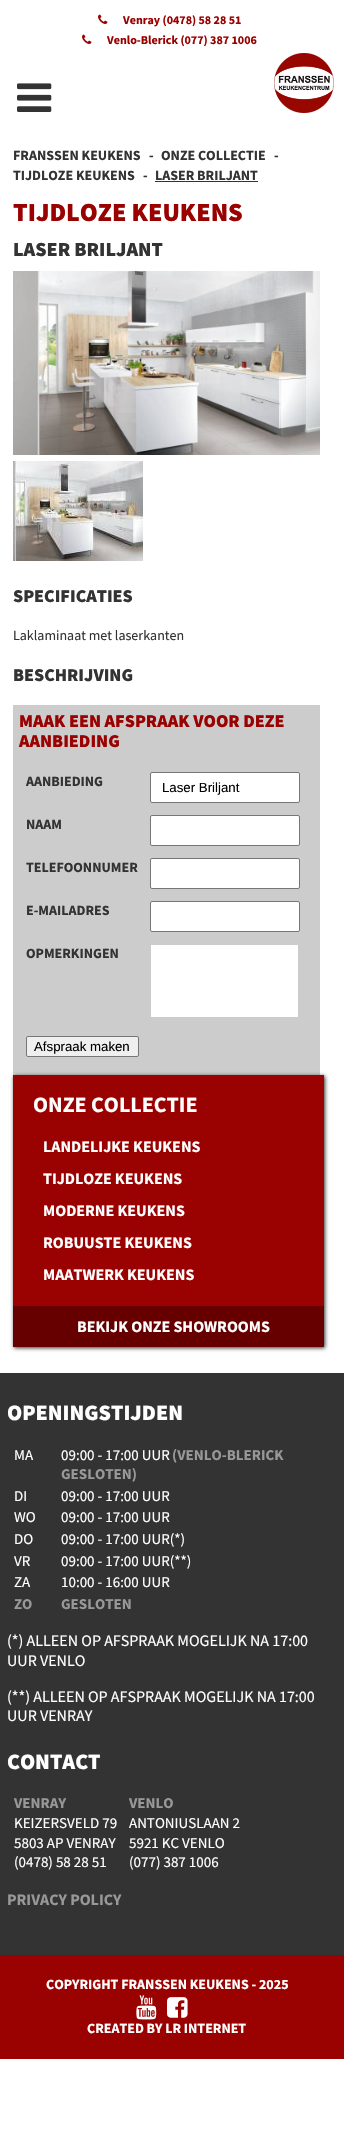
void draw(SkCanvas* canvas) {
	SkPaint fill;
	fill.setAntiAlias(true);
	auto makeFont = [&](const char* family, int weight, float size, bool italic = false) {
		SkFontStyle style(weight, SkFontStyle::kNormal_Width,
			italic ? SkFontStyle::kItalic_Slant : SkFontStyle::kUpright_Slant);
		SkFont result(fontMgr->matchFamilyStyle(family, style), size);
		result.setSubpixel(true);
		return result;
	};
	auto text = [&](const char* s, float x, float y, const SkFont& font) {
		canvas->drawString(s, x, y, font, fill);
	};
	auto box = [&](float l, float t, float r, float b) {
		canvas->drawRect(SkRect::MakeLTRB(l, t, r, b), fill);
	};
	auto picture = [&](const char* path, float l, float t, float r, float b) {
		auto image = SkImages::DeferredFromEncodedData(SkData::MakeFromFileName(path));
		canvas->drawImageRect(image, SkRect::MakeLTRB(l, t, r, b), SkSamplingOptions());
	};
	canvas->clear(0xFFFFFFFF);
	picture("image0.png", 98, 14, 108, 24);
	picture("image0.png", 82, 34, 92, 44);
	picture("image1.png", 17, 83, 52, 112);
	picture("image2.png", 274, 53, 334, 113);
	fill.setColor(0xFF333333);
	box(155, 181, 258, 182);
	picture("image3.png", 13, 271, 320, 455);
	picture("image4.png", 13, 461, 143, 561);
	fill.setColor(0xFFCCCCCC);
	box(13, 705, 320, 1075);
	fill.setColor(0xFFFFFFFF);
	canvas->drawRoundRect(SkRect::MakeLTRB(150.5f, 772.5f, 299.5f, 802.5f), 1.5f, 1.5f, fill);
	fill.setStyle(SkPaint::kStroke_Style);
	fill.setStrokeWidth(1);
	fill.setColor(0xFF767676);
	canvas->drawRoundRect(SkRect::MakeLTRB(150.5f, 772.5f, 299.5f, 802.5f), 1.5f, 1.5f, fill);
	fill.setStyle(SkPaint::kFill_Style);
	fill.setColor(0xFFFFFFFF);
	canvas->drawRoundRect(SkRect::MakeLTRB(150.5f, 815.5f, 299.5f, 845.5f), 1.5f, 1.5f, fill);
	fill.setStyle(SkPaint::kStroke_Style);
	fill.setColor(0xFF767676);
	canvas->drawRoundRect(SkRect::MakeLTRB(150.5f, 815.5f, 299.5f, 845.5f), 1.5f, 1.5f, fill);
	fill.setStyle(SkPaint::kFill_Style);
	fill.setColor(0xFFFFFFFF);
	canvas->drawRoundRect(SkRect::MakeLTRB(150.5f, 858.5f, 299.5f, 888.5f), 1.5f, 1.5f, fill);
	fill.setStyle(SkPaint::kStroke_Style);
	fill.setColor(0xFF767676);
	canvas->drawRoundRect(SkRect::MakeLTRB(150.5f, 858.5f, 299.5f, 888.5f), 1.5f, 1.5f, fill);
	fill.setStyle(SkPaint::kFill_Style);
	fill.setColor(0xFFFFFFFF);
	canvas->drawRoundRect(SkRect::MakeLTRB(150.5f, 901.5f, 299.5f, 931.5f), 1.5f, 1.5f, fill);
	fill.setStyle(SkPaint::kStroke_Style);
	fill.setColor(0xFF767676);
	canvas->drawRoundRect(SkRect::MakeLTRB(150.5f, 901.5f, 299.5f, 931.5f), 1.5f, 1.5f, fill);
	fill.setStyle(SkPaint::kFill_Style);
	fill.setColor(0xFFFFFFFF);
	box(151, 945, 298, 1017);
	fill.setColor(0xFFEFEFEF);
	canvas->drawRoundRect(SkRect::MakeLTRB(26.5f, 1036.5f, 138.5f, 1056.5f), 1.5f, 1.5f, fill);
	fill.setStyle(SkPaint::kStroke_Style);
	fill.setColor(0xFF767676);
	canvas->drawRoundRect(SkRect::MakeLTRB(26.5f, 1036.5f, 138.5f, 1056.5f), 1.5f, 1.5f, fill);
	fill.setStyle(SkPaint::kFill_Style);
	fill.setColor(0xFF333333);
	fill.setMaskFilter(SkMaskFilter::MakeBlur(kNormal_SkBlurStyle, 2));
	canvas->drawRect(SkRect::MakeLTRB(14, 1076, 325, 1348), fill);
	fill.setMaskFilter(nullptr);
	fill.setColor(0xFF990200);
	box(13, 1075, 324, 1306);
	fill.setColor(0xFF660000);
	box(13, 1306, 324, 1347);
	fill.setColor(0xFF333333);
	box(0, 1373, 344, 1955);
	fill.setColor(0xFF990200);
	box(0, 1955, 344, 2059);
	picture("image5.png", 136, 1995, 157, 2020);
	picture("image6.png", 167, 1997, 188, 2018);
	auto font1 = makeFont("Source Sans Pro", 700, 12);
	text("Venray (0478) 58 28 51", 123, 24, font1);
	text("Venlo-Blerick (077) 387 1006", 107, 44, font1);
	auto font2 = makeFont("Source Sans Pro", 700, 14);
	fill.setColor(0xFF333333);
	text("FRANSSEN KEUKENS", 13, 160, font2);
	text("-", 149, 160, font2);
	text("ONZE COLLECTIE", 161, 160, font2);
	text("-", 274, 160, font2);
	text("TIJDLOZE KEUKENS", 13, 180, font2);
	text("-", 143, 180, font2);
	text("LASER BRILJANT", 155, 180, font2);
	auto font3 = makeFont("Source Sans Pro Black", 900, 26);
	fill.setColor(0xFF990200);
	text("TIJDLOZE KEUKENS", 13, 221, font3);
	auto font4 = makeFont("Source Sans Pro Black", 900, 20);
	fill.setColor(0xFF333333);
	text("LASER BRILJANT", 13, 256, font4);
	auto font5 = makeFont("Source Sans Pro Black", 900, 18);
	text("SPECIFICATIES", 13, 602, font5);
	auto font6 = makeFont("Source Sans Pro", 400, 14);
	text("Laklaminaat met laserkanten", 13, 640, font6);
	text("BESCHRIJVING", 13, 681, font5);
	fill.setColor(0xFF990200);
	text("MAAK EEN AFSPRAAK VOOR DEZE", 19, 727, font5);
	text("AANBIEDING", 19, 747, font5);
	fill.setColor(0xFF333333);
	text("AANBIEDING", 26, 786, font2);
	auto font7 = makeFont("Liberation Sans", 400, 13.25f);
	fill.setColor(0xFF000000);
	text("Laser Briljant", 162, 792, font7);
	fill.setColor(0xFF333333);
	text("NAAM", 26, 829, font2);
	text("TELEFOONNUMER", 26, 872, font2);
	text("E-MAILADRES", 26, 915, font2);
	text("OPMERKINGEN", 26, 958, font2);
	fill.setColor(0xFF000000);
	text("Afspraak maken", 34, 1051, font7);
	auto font8 = makeFont("Source Sans Pro", 700, 22);
	fill.setColor(0xFFFFFFFF);
	text("ONZE COLLECTIE", 33, 1112, font8);
	auto font9 = makeFont("Source Sans Pro", 700, 16);
	text("LANDELIJKE KEUKENS", 43, 1152, font9);
	text("TIJDLOZE KEUKENS", 43, 1184, font9);
	text("MODERNE KEUKENS", 43, 1216, font9);
	text("ROBUUSTE KEUKENS", 43, 1248, font9);
	text("MAATWERK KEUKENS", 43, 1280, font9);
	text("BEKIJK ONZE SHOWROOMS", 77, 1332, font9);
	auto font10 = makeFont("Source Sans Pro Black", 900, 22);
	text("OPENINGSTIJDEN", 7, 1420, font10);
	auto font11 = makeFont("Source Sans Pro", 400, 15);
	text("MA", 14, 1460, font11);
	text("09:00 - 17:00 UUR", 61, 1460, font11);
	auto font12 = makeFont("Source Sans Pro", 700, 15);
	fill.setColor(0xFF989898);
	text("(VENLO-BLERICK", 172, 1460, font12);
	text("GESLOTEN)", 61, 1479, font12);
	fill.setColor(0xFFFFFFFF);
	text("DI", 14, 1501, font11);
	text("09:00 - 17:00 UUR", 61, 1501, font11);
	text("WO", 14, 1522, font11);
	text("09:00 - 17:00 UUR", 61, 1522, font11);
	text("DO", 14, 1544, font11);
	text("09:00 - 17:00 UUR(*)", 61, 1544, font11);
	text("VR", 14, 1566, font11);
	text("09:00 - 17:00 UUR(**)", 61, 1566, font11);
	text("ZA", 14, 1587, font11);
	text("10:00 - 16:00 UUR", 61, 1587, font11);
	fill.setColor(0xFF989898);
	text("ZO", 14, 1609, font12);
	text("GESLOTEN", 61, 1609, font12);
	auto font13 = makeFont("Source Sans Pro", 400, 16);
	fill.setColor(0xFFFFFFFF);
	text("(*) ALLEEN OP AFSPRAAK MOGELIJK NA 17:00", 7, 1646, font13);
	text("UUR VENLO", 7, 1666, font13);
	text("(**) ALLEEN OP AFSPRAAK MOGELIJK NA 17:00", 7, 1702, font13);
	text("UUR VENRAY", 7, 1721, font13);
	text("CONTACT", 7, 1769, font10);
	fill.setColor(0xFF989898);
	text("VENRAY", 14, 1808, font12);
	fill.setColor(0xFFFFFFFF);
	text("KEIZERSVELD 79", 14, 1828, font11);
	text("5803 AP VENRAY", 14, 1848, font11);
	text("(0478) 58 28 51", 14, 1867, font11);
	fill.setColor(0xFF989898);
	text("VENLO", 129, 1808, font12);
	fill.setColor(0xFFFFFFFF);
	text("ANTONIUSLAAN 2", 129, 1828, font11);
	text("5921 KC VENLO", 129, 1848, font11);
	text("(077) 387 1006", 129, 1867, font11);
	fill.setColor(0xFF989898);
	text("PRIVACY POLICY", 7, 1905, font9);
	fill.setColor(0xFFFFFFFF);
	text("COPYRIGHT FRANSSEN KEUKENS - 2025", 46, 1989, font2);
	text("CREATED BY LR INTERNET", 87, 2033, font2);
}
